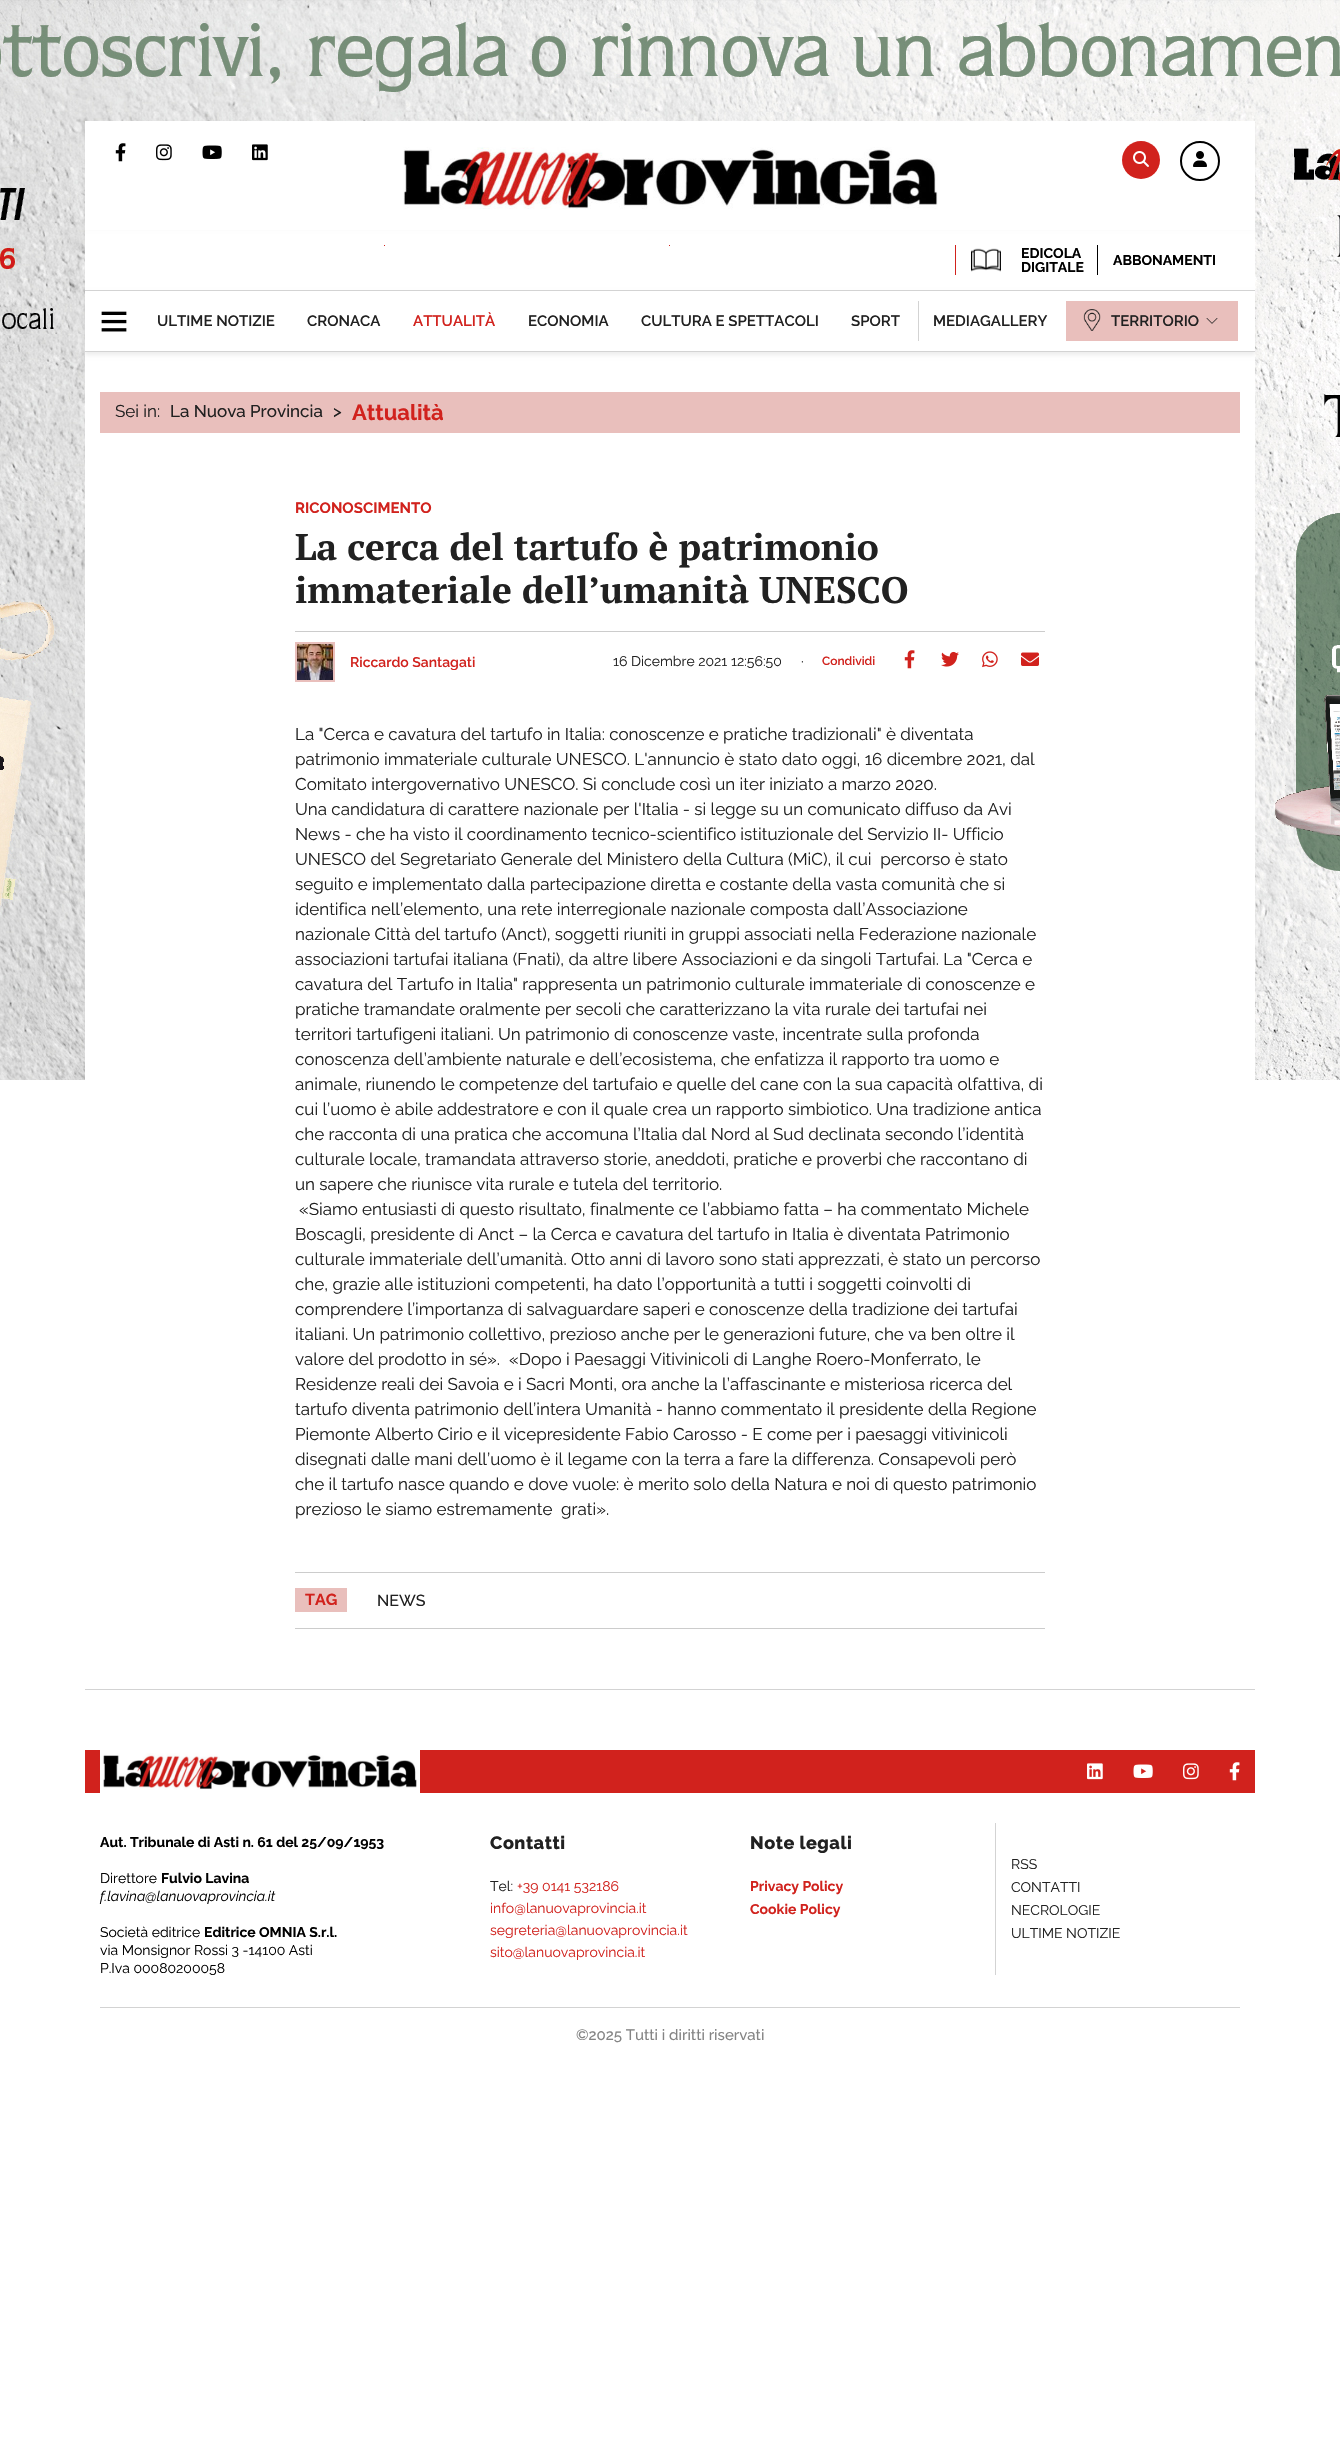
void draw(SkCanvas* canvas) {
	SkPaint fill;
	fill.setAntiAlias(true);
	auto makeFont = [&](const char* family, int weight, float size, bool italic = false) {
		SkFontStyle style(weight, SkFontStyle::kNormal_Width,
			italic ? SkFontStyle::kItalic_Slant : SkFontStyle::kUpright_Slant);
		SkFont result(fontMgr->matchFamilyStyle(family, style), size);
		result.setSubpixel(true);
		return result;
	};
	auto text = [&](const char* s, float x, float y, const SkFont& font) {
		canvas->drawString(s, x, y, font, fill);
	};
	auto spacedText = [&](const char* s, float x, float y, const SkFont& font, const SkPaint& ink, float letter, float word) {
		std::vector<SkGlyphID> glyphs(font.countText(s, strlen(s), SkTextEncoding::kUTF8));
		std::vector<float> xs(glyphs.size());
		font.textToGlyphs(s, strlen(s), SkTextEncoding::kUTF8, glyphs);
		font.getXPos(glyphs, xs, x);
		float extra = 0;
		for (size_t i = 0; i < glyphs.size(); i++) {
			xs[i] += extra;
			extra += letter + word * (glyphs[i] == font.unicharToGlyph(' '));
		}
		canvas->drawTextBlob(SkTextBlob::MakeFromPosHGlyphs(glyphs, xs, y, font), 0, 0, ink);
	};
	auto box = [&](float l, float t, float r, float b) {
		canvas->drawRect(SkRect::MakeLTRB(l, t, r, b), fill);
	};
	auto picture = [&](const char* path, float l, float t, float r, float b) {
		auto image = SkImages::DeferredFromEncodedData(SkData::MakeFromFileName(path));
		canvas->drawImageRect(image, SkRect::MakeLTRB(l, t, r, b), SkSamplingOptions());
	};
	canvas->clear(0xFFFFFFFF);
	picture("image0.png", 0, 0, 1340, 1080);
	fill.setColor(0xFFFFFFFF);
	box(85, 121, 1255, 351);
	canvas->save();
	canvas->clipPath(SkPathBuilder(SkPathFillType::kEvenOdd).moveTo(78, 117).lineTo(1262, 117).lineTo(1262, 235).lineTo(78, 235).close().moveTo(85, 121).lineTo(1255, 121).lineTo(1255, 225).lineTo(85, 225).close().detach(), true);
	fill.setColor(0x12000000);
	fill.setMaskFilter(SkMaskFilter::MakeBlur(kNormal_SkBlurStyle, 2));
	canvas->drawRect(SkRect::MakeLTRB(85, 124, 1255, 228), fill);
	fill.setMaskFilter(nullptr);
	canvas->restore();
	picture("image1.png", 115, 143, 126, 162);
	picture("image2.png", 156, 144, 172, 161);
	picture("image3.png", 202, 145, 222, 159);
	picture("image4.png", 252, 144, 268, 161);
	picture("image5.png", 403, 147, 938, 210);
	fill.setColor(0xFFD1221D);
	canvas->drawCircle(1141, 160, 19, fill);
	picture("image6.png", 1133, 151, 1149, 167);
	fill.setStyle(SkPaint::kStroke_Style);
	fill.setStrokeWidth(2);
	fill.setColor(0xFF000000);
	canvas->drawCircle(1200, 161, 19, fill);
	picture("image7.png", 1193, 151, 1207, 167);
	fill.setStyle(SkPaint::kFill_Style);
	fill.setColor(0xFFFFFFFF);
	box(85, 225, 1255, 230);
	fill.setColor(0xFFD1221D);
	box(384, 245, 385, 246);
	box(669, 245, 670, 246);
	box(955, 245, 956, 275);
	fill.setColor(0xFF000000);
	box(1097, 245, 1098, 275);
	picture("image8.png", 971, 248, 1001, 272);
	fill.setColor(0xFFFFFFFF);
	box(85, 352, 1255, 1080);
	canvas->save();
	canvas->clipPath(SkPathBuilder(SkPathFillType::kEvenOdd).moveTo(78, 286).lineTo(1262, 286).lineTo(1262, 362).lineTo(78, 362).close().moveTo(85, 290).lineTo(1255, 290).lineTo(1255, 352).lineTo(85, 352).close().detach(), true);
	fill.setColor(0x12000000);
	fill.setMaskFilter(SkMaskFilter::MakeBlur(kNormal_SkBlurStyle, 2));
	canvas->drawRect(SkRect::MakeLTRB(85, 293, 1255, 355), fill);
	fill.setMaskFilter(nullptr);
	canvas->restore();
	fill.setColor(0xFFD3D3D3);
	box(85, 290, 1255, 291);
	box(85, 351, 1255, 352);
	picture("image9.png", 101, 311, 127, 332);
	box(918, 301, 919, 341);
	fill.setColor(0xFFE9BFBC);
	box(1066, 301, 1238, 341);
	picture("image10.png", 1083, 309, 1101, 331);
	picture("image11.png", 1206, 318, 1218, 324);
	box(100, 392, 1240, 433);
	fill.setColor(0xFFD3D3D3);
	box(85, 1689, 1255, 1690);
	fill.setColor(0xFFCCCCCC);
	box(295, 631, 1045, 632);
	fill.setStyle(SkPaint::kStroke_Style);
	fill.setColor(0xFFE9BFBC);
	canvas->drawRect(SkRect::MakeLTRB(296, 643, 334, 681), fill);
	picture("image12.png", 297, 644, 333, 680);
	picture("image13.png", 904, 650, 915, 669);
	picture("image14.png", 941, 651, 959, 667);
	picture("image15.png", 982, 651, 998, 668);
	picture("image16.png", 1021, 652, 1039, 666);
	fill.setStyle(SkPaint::kFill_Style);
	fill.setColor(0xFFCCCCCC);
	box(295, 1572, 1045, 1573);
	box(295, 1628, 1045, 1629);
	fill.setColor(0xFFE9BFBC);
	box(295, 1588, 347, 1612);
	fill.setColor(0xFFD1221D);
	box(85, 1750, 1255, 1793);
	picture("image17.png", 100, 1750, 420, 1793);
	picture("image18.png", 1087, 1763, 1103, 1780);
	picture("image19.png", 1133, 1764, 1153, 1778);
	picture("image20.png", 1183, 1763, 1199, 1780);
	picture("image21.png", 1229, 1762, 1240, 1781);
	fill.setColor(0xFFD3D3D3);
	box(995, 1823, 996, 1975);
	box(100, 2007, 1240, 2008);
	auto font1 = makeFont("Raleway", 700, 14);
	fill.setColor(0xFF000000);
	text("EDICOLA", 1021, 258, font1);
	text("DIGITALE", 1021, 272, font1);
	text("ABBONAMENTI", 1113, 265, font1);
	auto font2 = makeFont("Raleway", 600, 15);
	fill.setColor(0xFF212121);
	text("ULTIME NOTIZIE", 157, 326, font2);
	text("CRONACA", 307, 326, font2);
	fill.setColor(0xFFD1221D);
	text("ATTUALITÀ", 413, 326, font2);
	fill.setColor(0xFF212121);
	text("ECONOMIA", 528, 326, font2);
	text("CULTURA E SPETTACOLI", 641, 326, font2);
	text("SPORT", 851, 326, font2);
	text("MEDIAGALLERY", 933, 326, font2);
	text("TERRITORIO", 1111, 326, font2);
	auto font3 = makeFont("Raleway", 400, 17);
	text("Sei in:", 115, 417, font3);
	auto font4 = makeFont("Raleway", 500, 17);
	text("La Nuova Provincia", 170, 417, font4);
	text(">", 333, 417, font4);
	auto font5 = makeFont("Raleway", 700, 22);
	fill.setColor(0xFFD1221D);
	text("Attualità", 352, 420, font5);
	auto font6 = makeFont("Raleway", 700, 15);
	text("RICONOSCIMENTO", 295, 513, font6);
	auto font7 = makeFont("PT Serif", 700, 37);
	fill.setColor(0xFF212121);
	text("La cerca del tartufo è patrimonio", 295, 560, font7);
	text("immateriale dell’umanità UNESCO", 295, 603, font7);
	auto font8 = makeFont("Raleway", 600, 14);
	fill.setColor(0xFFD1221D);
	text("Riccardo Santagati", 350, 667, font8);
	auto font9 = makeFont("Raleway", 400, 14);
	fill.setColor(0xFF212121);
	text("16 Dicembre 2021 12:56:50", 613, 666, font9);
	text("·", 801, 666, font9);
	auto font10 = makeFont("Raleway", 600, 12);
	fill.setColor(0xFFD1221D);
	text("Condividi", 822, 665, font10);
	fill.setColor(0xFF212121);
	text("La \"Cerca e cavatura del tartufo in Italia: conoscenze e pratiche tradizionali\" è diventata", 295, 740, font3);
	text("patrimonio immateriale culturale UNESCO. L'annuncio è stato dato oggi, 16 dicembre 2021, dal", 295, 765, font3);
	text("Comitato intergovernativo UNESCO. Si conclude così un iter iniziato a marzo 2020.", 295, 790, font3);
	text("Una candidatura di carattere nazionale per l'Italia - si legge su un comunicato diffuso da Avi", 295, 815, font3);
	text("News - che ha visto il coordinamento tecnico-scientifico istituzionale del Servizio II- Ufficio", 295, 840, font3);
	text("UNESCO del Segretariato Generale del Ministero della Cultura (MiC), il cui  percorso è stato", 295, 865, font3);
	text("seguito e implementato dalla partecipazione diretta e costante della vasta comunità che si", 295, 890, font3);
	text("identifica nell’elemento, una rete interregionale nazionale composta dall’Associazione", 295, 915, font3);
	text("nazionale Città del tartufo (Anct), soggetti riuniti in gruppi associati nella Federazione nazionale", 295, 940, font3);
	text("associazioni tartufai italiana (Fnati), da altre libere Associazioni e da singoli Tartufai. La \"Cerca e", 295, 965, font3);
	text("cavatura del Tartufo in Italia\" rappresenta un patrimonio culturale immateriale di conoscenze e", 295, 990, font3);
	text("pratiche tramandate oralmente per secoli che caratterizzano la vita rurale dei tartufai nei", 295, 1015, font3);
	text("territori tartufigeni italiani. Un patrimonio di conoscenze vaste, incentrate sulla profonda", 295, 1040, font3);
	text("conoscenza dell’ambiente naturale e dell’ecosistema, che enfatizza il rapporto tra uomo e", 295, 1065, font3);
	text("animale, riunendo le competenze del tartufaio e quelle del cane con la sua capacità olfattiva, di", 295, 1090, font3);
	text("cui l’uomo è abile addestratore e con il quale crea un rapporto simbiotico. Una tradizione antica", 295, 1115, font3);
	text("che racconta di una pratica che accomuna l’Italia dal Nord al Sud declinata secondo l’identità", 295, 1140, font3);
	text("culturale locale, tramandata attraverso storie, aneddoti, pratiche e proverbi che raccontano di", 295, 1165, font3);
	text("un sapere che riunisce vita rurale e tutela del territorio.", 295, 1190, font3);
	text("«Siamo entusiasti di questo risultato, finalmente ce l’abbiamo fatta – ha commentato Michele", 299, 1215, font3);
	text("Boscagli, presidente di Anct – la Cerca e cavatura del tartufo in Italia è diventata Patrimonio", 295, 1240, font3);
	text("culturale immateriale dell’umanità. Otto anni di lavoro sono stati apprezzati, è stato un percorso", 295, 1265, font3);
	text("che, grazie alle istituzioni competenti, ha dato l’opportunità a tutti i soggetti coinvolti di", 295, 1290, font3);
	text("comprendere l’importanza di salvaguardare saperi e conoscenze della tradizione dei tartufai", 295, 1315, font3);
	text("italiani. Un patrimonio collettivo, prezioso anche per le generazioni future, che va ben oltre il", 295, 1340, font3);
	text("valore del prodotto in sé».", 295, 1365, font3);
	text("«Dopo i Paesaggi Vitivinicoli di Langhe Roero-Monferrato, le", 509, 1365, font3);
	text("Residenze reali dei Savoia e i Sacri Monti, ora anche la l’affascinante e misteriosa ricerca del", 295, 1390, font3);
	text("tartufo diventa patrimonio dell’intera Umanità - hanno commentato il presidente della Regione", 295, 1415, font3);
	text("Piemonte Alberto Cirio e il vicepresidente Fabio Carosso - E come per i paesaggi vitivinicoli", 295, 1440, font3);
	text("disegnati dalle mani dell’uomo è il legame con la terra a fare la differenza. Consapevoli però", 295, 1465, font3);
	text("che il tartufo nasce quando e dove vuole: è merito solo della Natura e noi di questo patrimonio", 295, 1490, font3);
	text("prezioso le siamo estremamente", 295, 1515, font3);
	text("grati».", 561, 1515, font3);
	auto font11 = makeFont("Raleway", 700, 16);
	fill.setColor(0xFFD1221D);
	text("TAG", 305, 1605, font11);
	auto font12 = makeFont("Raleway", 500, 16);
	fill.setColor(0xFF212121);
	text("NEWS", 377, 1606, font12);
	fill.setColor(0xFF000000);
	text("Aut. Tribunale di Asti n. 61 del 25/09/1953", 100, 1847, font1);
	text("Direttore", 100, 1883, font9);
	text("Fulvio Lavina", 161, 1883, font1);
	auto font13 = makeFont("Raleway", 400, 14, true);
	text("f.lavina@lanuovaprovincia.it", 100, 1901, font13);
	text("Società editrice", 100, 1937, font9);
	text("Editrice OMNIA S.r.l.", 204, 1937, font1);
	text("via Monsignor Rossi 3 -14100 Asti", 100, 1955, font9);
	text("P.Iva 00080200058", 100, 1973, font9);
	auto font14 = makeFont("Raleway", 800, 18);
	fill.setColor(0xFF212121);
	spacedText("Contatti", 490, 1849, font14, fill, 0.5f, 0);
	text("Tel:", 490, 1891, font9);
	fill.setColor(0xFFD1221D);
	text("+39 0141 532186", 517, 1891, font9);
	text("info@lanuovaprovincia.it", 490, 1913, font9);
	text("segreteria@lanuovaprovincia.it", 490, 1935, font9);
	text("sito@lanuovaprovincia.it", 490, 1957, font9);
	fill.setColor(0xFF212121);
	spacedText("Note legali", 750, 1849, font14, fill, 0.5f, 0);
	fill.setColor(0xFFD1221D);
	text("Privacy Policy", 750, 1891, font1);
	text("Cookie Policy", 750, 1914, font1);
	fill.setColor(0xFF212121);
	text("RSS", 1011, 1869, font9);
	text("CONTATTI", 1011, 1892, font9);
	text("NECROLOGIE", 1011, 1915, font9);
	text("ULTIME NOTIZIE", 1011, 1938, font9);
	auto font15 = makeFont("Raleway", 500, 15);
	fill.setColor(0xFF848484);
	text("©2025 Tutti i diritti riservati", 576, 2040, font15);
}
